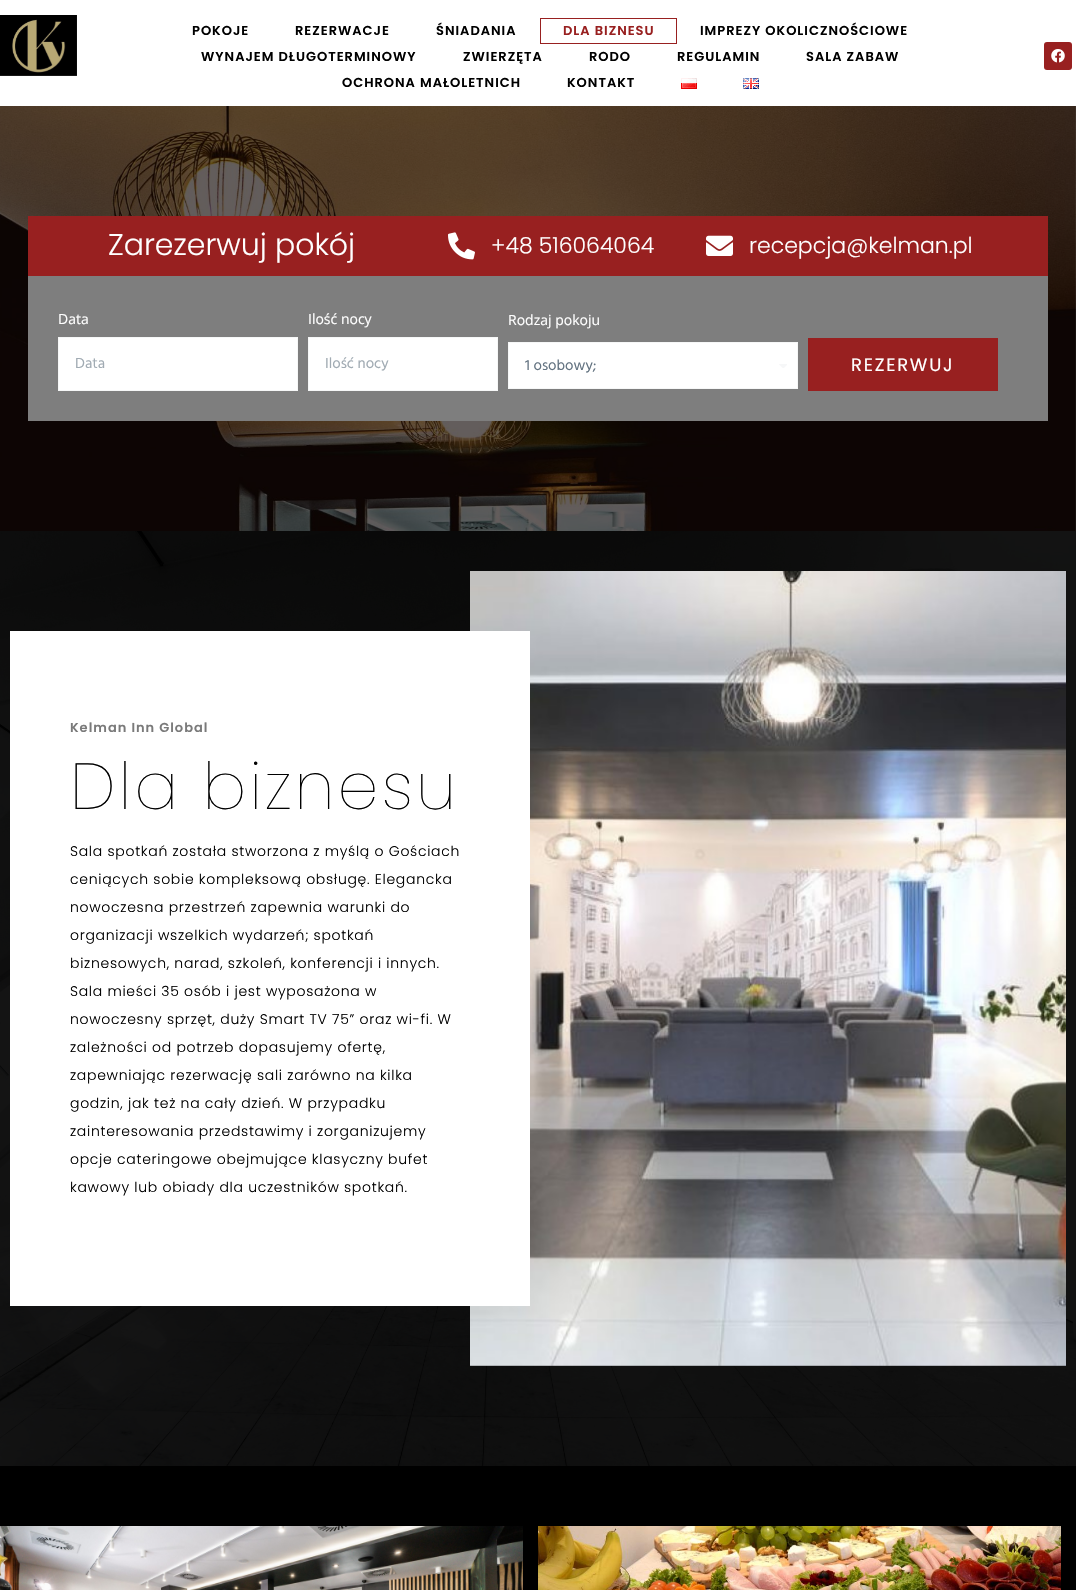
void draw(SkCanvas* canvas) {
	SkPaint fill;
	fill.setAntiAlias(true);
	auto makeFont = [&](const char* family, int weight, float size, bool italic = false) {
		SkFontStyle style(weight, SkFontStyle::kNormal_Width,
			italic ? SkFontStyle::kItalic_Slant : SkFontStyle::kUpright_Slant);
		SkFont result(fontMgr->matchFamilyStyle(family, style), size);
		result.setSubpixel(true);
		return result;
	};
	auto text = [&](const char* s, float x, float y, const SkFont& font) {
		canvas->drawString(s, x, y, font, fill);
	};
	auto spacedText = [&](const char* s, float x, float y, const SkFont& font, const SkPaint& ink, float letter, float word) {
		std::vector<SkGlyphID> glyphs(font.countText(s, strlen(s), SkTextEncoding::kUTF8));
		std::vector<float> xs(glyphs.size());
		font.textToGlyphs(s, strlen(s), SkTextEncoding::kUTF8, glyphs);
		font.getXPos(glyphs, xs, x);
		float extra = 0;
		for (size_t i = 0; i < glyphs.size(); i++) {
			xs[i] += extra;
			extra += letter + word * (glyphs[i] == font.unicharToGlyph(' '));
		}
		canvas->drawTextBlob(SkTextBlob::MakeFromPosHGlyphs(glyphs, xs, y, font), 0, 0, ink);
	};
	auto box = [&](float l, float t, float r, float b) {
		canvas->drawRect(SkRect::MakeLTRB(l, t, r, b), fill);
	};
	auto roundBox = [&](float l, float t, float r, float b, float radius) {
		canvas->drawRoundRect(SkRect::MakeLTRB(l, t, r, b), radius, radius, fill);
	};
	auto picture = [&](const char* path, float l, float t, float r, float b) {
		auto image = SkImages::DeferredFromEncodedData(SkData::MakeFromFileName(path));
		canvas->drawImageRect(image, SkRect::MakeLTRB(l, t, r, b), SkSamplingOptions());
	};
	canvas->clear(0xFFFFFFFF);
	picture("image0.png", 0, 15, 77, 76);
	fill.setStyle(SkPaint::kStroke_Style);
	fill.setStrokeWidth(1);
	fill.setColor(0xFF982020);
	canvas->drawRect(SkRect::MakeLTRB(540.5f, 18.5f, 676.5f, 43.5f), fill);
	picture("image1.png", 681, 78, 697, 89);
	picture("image2.png", 743, 78, 759, 89);
	fill.setStyle(SkPaint::kFill_Style);
	roundBox(1044, 42, 1072, 70, 3);
	picture("image3.png", 1051, 49, 1065, 63);
	picture("image4.png", 0, 106, 1076, 531);
	box(28, 216, 1048, 276);
	picture("image5.png", 448, 232, 475, 260);
	picture("image6.png", 706, 235, 733, 256);
	fill.setColor(0xFF7E7E7E);
	box(28, 276, 1048, 421);
	fill.setColor(0xFFFFFFFF);
	canvas->drawRect(SkRect::MakeLTRB(58.5f, 337.5f, 297.5f, 390.5f), fill);
	fill.setStyle(SkPaint::kStroke_Style);
	fill.setColor(0xFFF6F7F7);
	canvas->drawRect(SkRect::MakeLTRB(58.5f, 337.5f, 297.5f, 390.5f), fill);
	fill.setStyle(SkPaint::kFill_Style);
	fill.setColor(0xFFFFFFFF);
	canvas->drawRect(SkRect::MakeLTRB(308.5f, 337.5f, 497.5f, 390.5f), fill);
	fill.setStyle(SkPaint::kStroke_Style);
	fill.setColor(0xFFF6F7F7);
	canvas->drawRect(SkRect::MakeLTRB(308.5f, 337.5f, 497.5f, 390.5f), fill);
	fill.setStyle(SkPaint::kFill_Style);
	fill.setColor(0xFFFFFFFF);
	canvas->drawRect(SkRect::MakeLTRB(508.5f, 342.5f, 797.5f, 388.5f), fill);
	fill.setStyle(SkPaint::kStroke_Style);
	fill.setColor(0xFFF6F7F7);
	canvas->drawRect(SkRect::MakeLTRB(508.5f, 342.5f, 797.5f, 388.5f), fill);
	picture("image7.png", 779, 364, 787, 368);
	fill.setStyle(SkPaint::kFill_Style);
	fill.setColor(0xFF982020);
	box(808, 338, 998, 391);
	picture("image8.png", 0, 531, 1076, 1466);
	picture("image9.png", 470, 571, 1066, 1366);
	fill.setColor(0xFFFFFFFF);
	box(10, 631, 530, 1306);
	fill.setColor(0xFF000000);
	box(0, 1466, 1076, 1590);
	picture("image10.png", 0, 1526, 523, 1590);
	picture("image11.png", 538, 1526, 1061, 1590);
	auto font1 = makeFont("Poppins", 600, 13);
	spacedText("POKOJE", 192, 35, font1, fill, 1, 0);
	spacedText("REZERWACJE", 295, 35, font1, fill, 1, 0);
	spacedText("ŚNIADANIA", 436, 35, font1, fill, 1, 0);
	fill.setColor(0xFF982020);
	spacedText("DLA BIZNESU", 563, 35, font1, fill, 1, 0);
	fill.setColor(0xFF000000);
	spacedText("IMPREZY OKOLICZNOŚCIOWE", 700, 35, font1, fill, 1, 0);
	spacedText("WYNAJEM DŁUGOTERMINOWY", 201, 61, font1, fill, 1, 0);
	spacedText("ZWIERZĘTA", 463, 61, font1, fill, 1, 0);
	spacedText("RODO", 589, 61, font1, fill, 1, 0);
	spacedText("REGULAMIN", 677, 61, font1, fill, 1, 0);
	spacedText("SALA ZABAW", 806, 61, font1, fill, 1, 0);
	spacedText("OCHRONA MAŁOLETNICH", 342, 87, font1, fill, 1, 0);
	spacedText("KONTAKT", 567, 87, font1, fill, 1, 0);
	auto font2 = makeFont("Poppins", 300, 30);
	fill.setColor(0xFFFFFFFF);
	text("Zarezerwuj pokój", 108, 255, font2);
	auto font3 = makeFont("Poppins", 300, 22);
	text("+48 516064064", 491, 253, font3);
	text("recepcja@kelman.pl", 749, 253, font3);
	auto font4 = makeFont("Open Sans", 400, 14);
	text("Data", 58, 324, font4);
	auto font5 = makeFont("Hind", 400, 15);
	fill.setColor(0xFFA1ABB3);
	text("Data", 75, 368, font5);
	fill.setColor(0xFFFFFFFF);
	text("Ilość nocy", 308, 324, font4);
	fill.setColor(0xFFA1ABB3);
	text("Ilość nocy", 325, 368, font5);
	fill.setColor(0xFFFFFFFF);
	text("Rodzaj pokoju", 508, 325, font4);
	fill.setColor(0xFF637381);
	text("1 osobowy;", 525, 370, font5);
	auto font6 = makeFont("Poppins", 400, 18);
	fill.setColor(0xFFFFFFFF);
	spacedText("REZERWUJ", 851, 371, font6, fill, 1.75f, 0);
	fill.setColor(0xFF7A7A7A);
	spacedText("Kelman Inn Global", 70, 732, font1, fill, 1, 0);
	auto font7 = makeFont("Poppins", 100, 65);
	fill.setColor(0xFF000000);
	spacedText("Dla biznesu", 70, 809, font7, fill, 3.1f, 0);
	auto font8 = makeFont("Poppins", 300, 14);
	spacedText("Sala spotkań została stworzona z myślą o Gościach", 70, 856, font8, fill, 0.7f, 0);
	spacedText("ceniących sobie kompleksową obsługę. Elegancka", 70, 884, font8, fill, 0.7f, 0);
	spacedText("nowoczesna przestrzeń zapewnia warunki do", 70, 912, font8, fill, 0.7f, 0);
	spacedText("organizacji wszelkich wydarzeń; spotkań", 70, 940, font8, fill, 0.7f, 0);
	spacedText("biznesowych, narad, szkoleń, konferencji i innych.", 70, 968, font8, fill, 0.7f, 0);
	spacedText("Sala mieści 35 osób i jest wyposażona w", 70, 996, font8, fill, 0.7f, 0);
	spacedText("nowoczesny sprzęt, duży Smart TV 75” oraz wi-fi. W", 70, 1024, font8, fill, 0.7f, 0);
	spacedText("zależności od potrzeb dopasujemy ofertę,", 70, 1052, font8, fill, 0.7f, 0);
	spacedText("zapewniając rezerwację sali zarówno na kilka", 70, 1080, font8, fill, 0.7f, 0);
	spacedText("godzin, jak też na cały dzień. W przypadku", 70, 1108, font8, fill, 0.7f, 0);
	spacedText("zainteresowania przedstawimy i zorganizujemy", 70, 1136, font8, fill, 0.7f, 0);
	spacedText("opcje cateringowe obejmujące klasyczny bufet", 70, 1164, font8, fill, 0.7f, 0);
	spacedText("kawowy lub obiady dla uczestników spotkań.", 70, 1192, font8, fill, 0.7f, 0);
}
